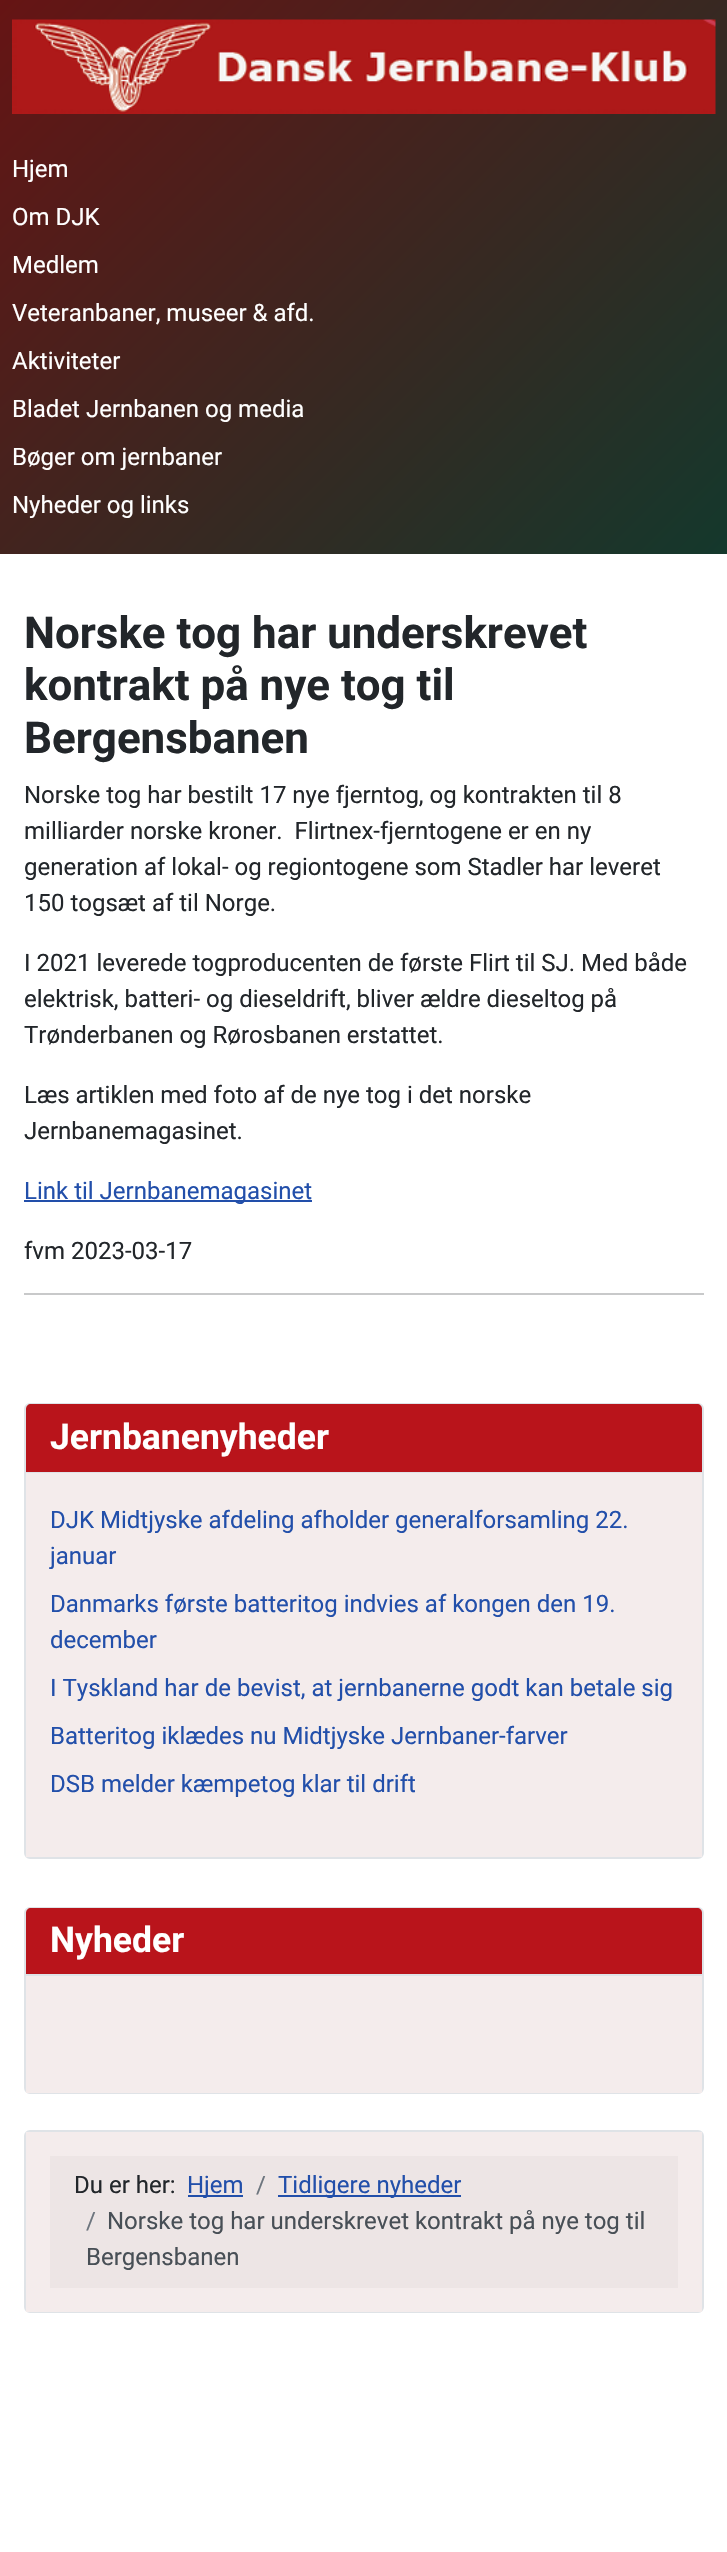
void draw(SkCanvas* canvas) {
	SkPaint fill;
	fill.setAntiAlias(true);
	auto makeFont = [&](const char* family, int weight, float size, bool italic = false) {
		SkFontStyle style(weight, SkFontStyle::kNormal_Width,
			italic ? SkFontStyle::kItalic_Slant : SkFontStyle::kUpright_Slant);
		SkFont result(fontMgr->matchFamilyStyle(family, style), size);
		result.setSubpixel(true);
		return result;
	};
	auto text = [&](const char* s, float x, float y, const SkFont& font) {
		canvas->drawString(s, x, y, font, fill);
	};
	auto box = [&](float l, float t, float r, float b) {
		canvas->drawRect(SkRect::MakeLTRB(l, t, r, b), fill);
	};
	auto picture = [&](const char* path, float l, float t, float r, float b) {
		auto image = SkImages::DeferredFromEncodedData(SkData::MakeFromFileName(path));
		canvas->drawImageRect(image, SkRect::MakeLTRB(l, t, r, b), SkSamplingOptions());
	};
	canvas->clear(0xFFFFFFFF);
	{
		const SkColor colors[] = {0xFF661414, 0xFF14382C};
		const float stops[] = {0, 1};
		const SkPoint ends[] = {{43, -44}, {684, 597}};
		fill.setShader(SkGradientShader::MakeLinear(ends, colors, stops, 2, SkTileMode::kClamp));
		fill.setAlpha(255);
	}
	box(0, 0, 727, 554);
	picture("image0.png", 12, 19, 716, 114);
	fill.setShader(nullptr);
	fill.setColor(0xFF224FAA);
	box(24, 1200, 312, 1202);
	fill.setColor(0xFFC8C9CA);
	box(24, 1293, 704, 1295);
	fill.setStyle(SkPaint::kStroke_Style);
	fill.setStrokeWidth(2);
	fill.setColor(0xFFDFE3E7);
	canvas->drawRoundRect(SkRect::MakeLTRB(25, 1404, 703, 1858), 5, 5, fill);
	fill.setStyle(SkPaint::kFill_Style);
	fill.setColor(0xFFB9141B);
	canvas->drawPath(SkPathBuilder().moveTo(31, 1404).lineTo(697, 1404).cubicTo(700, 1404, 702, 1406, 702, 1409).lineTo(702, 1473).lineTo(26, 1473).lineTo(26, 1409).cubicTo(26, 1406, 28, 1404, 31, 1404).close().detach(), fill);
	fill.setColor(0xFFDFE3E7);
	box(26, 1472, 702, 1473);
	fill.setColor(0xFFF4ECEC);
	box(26, 1473, 702, 1857);
	fill.setStyle(SkPaint::kStroke_Style);
	fill.setColor(0xFFDFE3E7);
	canvas->drawRoundRect(SkRect::MakeLTRB(25, 1908, 703, 2093), 5, 5, fill);
	fill.setStyle(SkPaint::kFill_Style);
	fill.setColor(0xFFB9141B);
	canvas->drawPath(SkPathBuilder().moveTo(31, 1908).lineTo(697, 1908).cubicTo(700, 1908, 702, 1910, 702, 1913).lineTo(702, 1976).lineTo(26, 1976).lineTo(26, 1913).cubicTo(26, 1910, 28, 1908, 31, 1908).close().detach(), fill);
	fill.setColor(0xFFDFE3E7);
	box(26, 1974, 702, 1976);
	fill.setColor(0xFFF4ECEC);
	box(26, 1976, 702, 2093);
	fill.setStyle(SkPaint::kStroke_Style);
	fill.setColor(0xFFDFE3E7);
	canvas->drawRoundRect(SkRect::MakeLTRB(25, 2131, 703, 2312), 5, 5, fill);
	fill.setStyle(SkPaint::kFill_Style);
	fill.setColor(0xFFF4ECEC);
	box(26, 2132, 702, 2312);
	fill.setColor(0xFFEDE5E5);
	box(50, 2156, 678, 2288);
	fill.setColor(0xFF224FAA);
	box(188, 2195, 243, 2197);
	box(278, 2195, 461, 2197);
	auto font1 = makeFont("Roboto", 400, 24);
	fill.setColor(0xFFFFFFFF);
	text("Hjem", 12, 177, font1);
	text("Om DJK", 12, 225, font1);
	text("Medlem", 12, 273, font1);
	text("Veteranbaner, museer & afd.", 12, 321, font1);
	text("Aktiviteter", 12, 369, font1);
	text("Bladet Jernbanen og media", 12, 417, font1);
	text("Bøger om jernbaner", 12, 465, font1);
	text("Nyheder og links", 12, 513, font1);
	auto font2 = makeFont("Roboto", 700, 43.9f);
	fill.setColor(0xFF22262A);
	text("Norske tog har underskrevet", 24, 648, font2);
	text("kontrakt på nye tog til", 24, 700, font2);
	text("Bergensbanen", 24, 753, font2);
	text("Norske tog har bestilt 17 nye fjerntog, og kontrakten til 8", 24, 803, font1);
	text("milliarder norske kroner.  Flirtnex-fjerntogene er en ny", 24, 839, font1);
	text("generation af lokal- og regiontogene som Stadler har leveret", 24, 875, font1);
	text("150 togsæt af til Norge.", 24, 911, font1);
	text("I 2021 leverede togproducenten de første Flirt til SJ. Med både", 24, 971, font1);
	text("elektrisk, batteri- og dieseldrift, bliver ældre dieseltog på", 24, 1007, font1);
	text("Trønderbanen og Rørosbanen erstattet.", 24, 1043, font1);
	text("Læs artiklen med foto af de nye tog i det norske", 24, 1103, font1);
	text("Jernbanemagasinet.", 24, 1139, font1);
	fill.setColor(0xFF224FAA);
	text("Link til Jernbanemagasinet", 24, 1199, font1);
	fill.setColor(0xFF22262A);
	text("fvm 2023-03-17", 24, 1259, font1);
	auto font3 = makeFont("Roboto", 700, 35.5f);
	fill.setColor(0xFFFFFFFF);
	text("Jernbanenyheder", 50, 1449, font3);
	fill.setColor(0xFF224FAA);
	text("DJK Midtjyske afdeling afholder generalforsamling 22.", 50, 1528, font1);
	text("januar", 50, 1564, font1);
	text("Danmarks første batteritog indvies af kongen den 19.", 50, 1612, font1);
	text("december", 50, 1648, font1);
	text("I Tyskland har de bevist, at jernbanerne godt kan betale sig", 50, 1696, font1);
	text("Batteritog iklædes nu Midtjyske Jernbaner-farver", 50, 1744, font1);
	text("DSB melder kæmpetog klar til drift", 50, 1792, font1);
	fill.setColor(0xFFFFFFFF);
	text("Nyheder", 50, 1952, font3);
	fill.setColor(0xFF22262A);
	text("Du er her:", 74, 2193, font1);
	fill.setColor(0xFF224FAA);
	text("Hjem", 187, 2193, font1);
	fill.setColor(0xFF6D757E);
	text("/", 256, 2193, font1);
	fill.setColor(0xFF224FAA);
	text("Tidligere nyheder", 278, 2193, font1);
	fill.setColor(0xFF6D757E);
	text("/", 86, 2229, font1);
	fill.setColor(0xFF484F56);
	text("Norske tog har underskrevet kontrakt på nye tog til", 107, 2229, font1);
	text("Bergensbanen", 86, 2265, font1);
}
